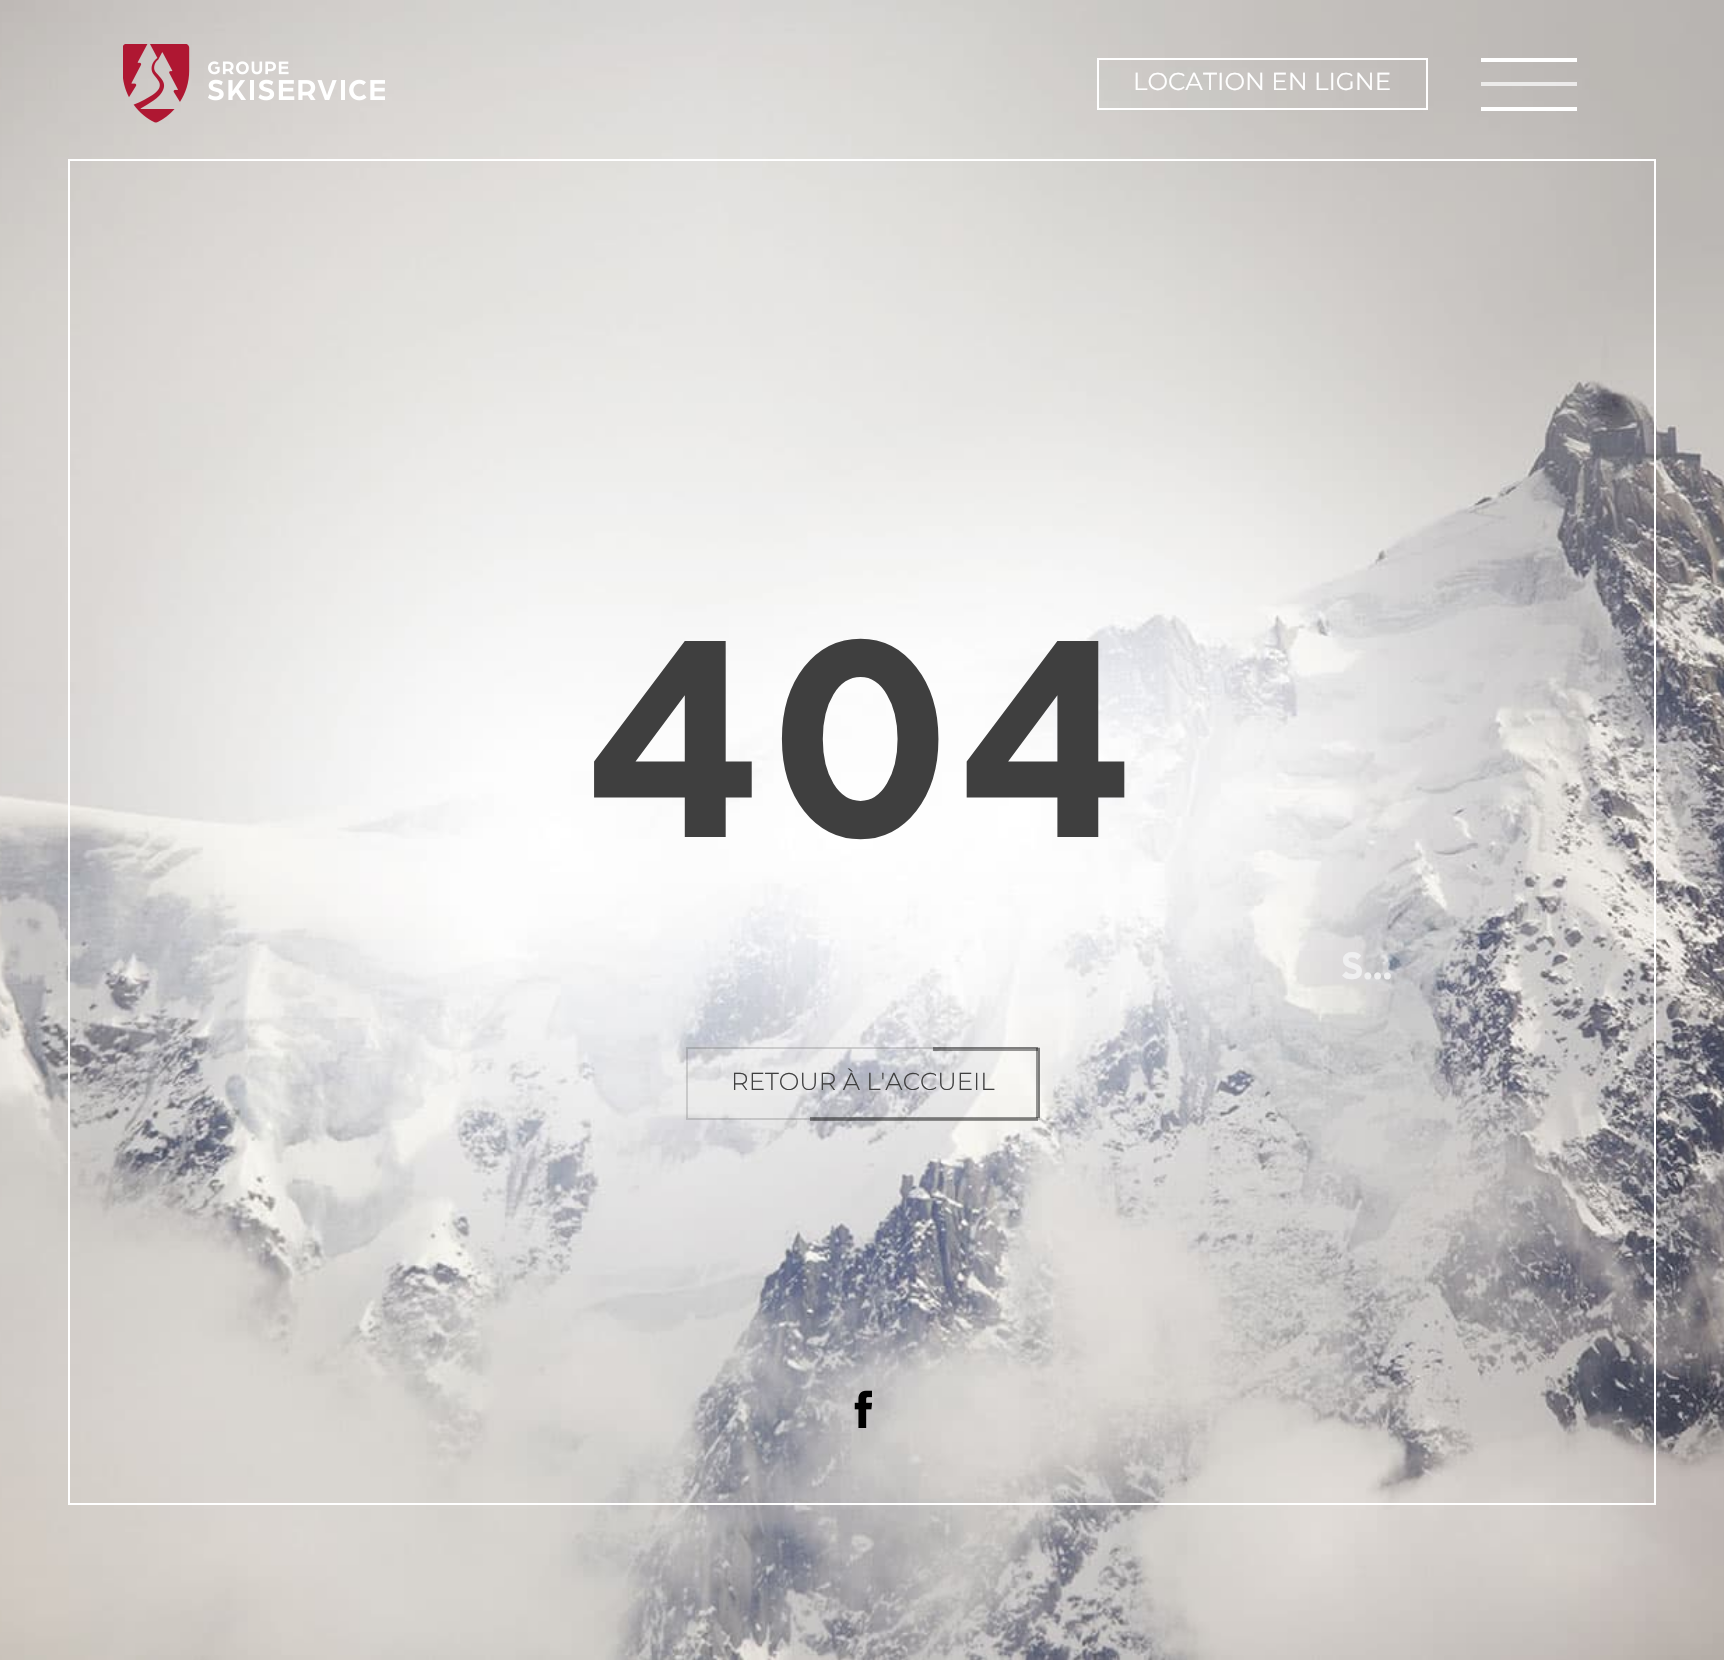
void draw(SkCanvas* canvas) {
	SkPaint fill;
	fill.setAntiAlias(true);
	auto makeFont = [&](const char* family, int weight, float size, bool italic = false) {
		SkFontStyle style(weight, SkFontStyle::kNormal_Width,
			italic ? SkFontStyle::kItalic_Slant : SkFontStyle::kUpright_Slant);
		SkFont result(fontMgr->matchFamilyStyle(family, style), size);
		result.setSubpixel(true);
		return result;
	};
	auto text = [&](const char* s, float x, float y, const SkFont& font) {
		canvas->drawString(s, x, y, font, fill);
	};
	auto spacedText = [&](const char* s, float x, float y, const SkFont& font, const SkPaint& ink, float letter, float word) {
		std::vector<SkGlyphID> glyphs(font.countText(s, strlen(s), SkTextEncoding::kUTF8));
		std::vector<float> xs(glyphs.size());
		font.textToGlyphs(s, strlen(s), SkTextEncoding::kUTF8, glyphs);
		font.getXPos(glyphs, xs, x);
		float extra = 0;
		for (size_t i = 0; i < glyphs.size(); i++) {
			xs[i] += extra;
			extra += letter + word * (glyphs[i] == font.unicharToGlyph(' '));
		}
		canvas->drawTextBlob(SkTextBlob::MakeFromPosHGlyphs(glyphs, xs, y, font), 0, 0, ink);
	};
	auto box = [&](float l, float t, float r, float b) {
		canvas->drawRect(SkRect::MakeLTRB(l, t, r, b), fill);
	};
	auto picture = [&](const char* path, float l, float t, float r, float b) {
		auto image = SkImages::DeferredFromEncodedData(SkData::MakeFromFileName(path));
		canvas->drawImageRect(image, SkRect::MakeLTRB(l, t, r, b), SkSamplingOptions());
	};
	canvas->clear(0xFFFFFFFF);
	picture("image1.png", 0, 0, 1724, 1660);
	picture("image0.png", 123, 44, 385, 123);
	fill.setStyle(SkPaint::kStroke_Style);
	fill.setStrokeWidth(2);
	fill.setColor(0xFFFFFFFF);
	canvas->drawRect(SkRect::MakeLTRB(1098, 59, 1427, 109), fill);
	fill.setStyle(SkPaint::kFill_Style);
	box(1481, 58, 1577, 62);
	fill.setColor(0xB3FFFFFF);
	box(1481, 82, 1577, 86);
	fill.setColor(0xFFFFFFFF);
	box(1481, 107, 1577, 111);
	box(68, 159, 1656, 161);
	box(1654, 159, 1656, 1505);
	box(68, 1503, 1656, 1505);
	box(68, 159, 70, 1505);
	fill.setStyle(SkPaint::kStroke_Style);
	fill.setColor(0x333F3F3F);
	canvas->drawRect(SkRect::MakeLTRB(687, 1048, 1039, 1119), fill);
	fill.setStyle(SkPaint::kFill_Style);
	fill.setColor(0x66000000);
	box(933, 1047, 1038, 1051);
	box(1036, 1048, 1040, 1118);
	box(810, 1117, 1038, 1121);
	picture("image2.png", 854, 1390, 872, 1428);
	auto font1 = makeFont("Montserrat", 400, 24.5f);
	fill.setColor(0xFFFFFFFF);
	text("LOCATION EN LIGNE", 1133, 90, font1);
	auto font2 = makeFont("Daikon", 700, 280);
	fill.setColor(0xFF3F3F3F);
	spacedText("404", 584, 837, font2, fill, 5, 0);
	auto font3 = makeFont("Daikon", 700, 38);
	fill.setColor(0xFFEFEFF0);
	text("S...", 1341, 979, font3);
	auto font4 = makeFont("Montserrat", 300, 24.5f);
	fill.setColor(0xFF3F3F3F);
	text("RETOUR À L'ACCUEIL", 731, 1090, font4);
}
